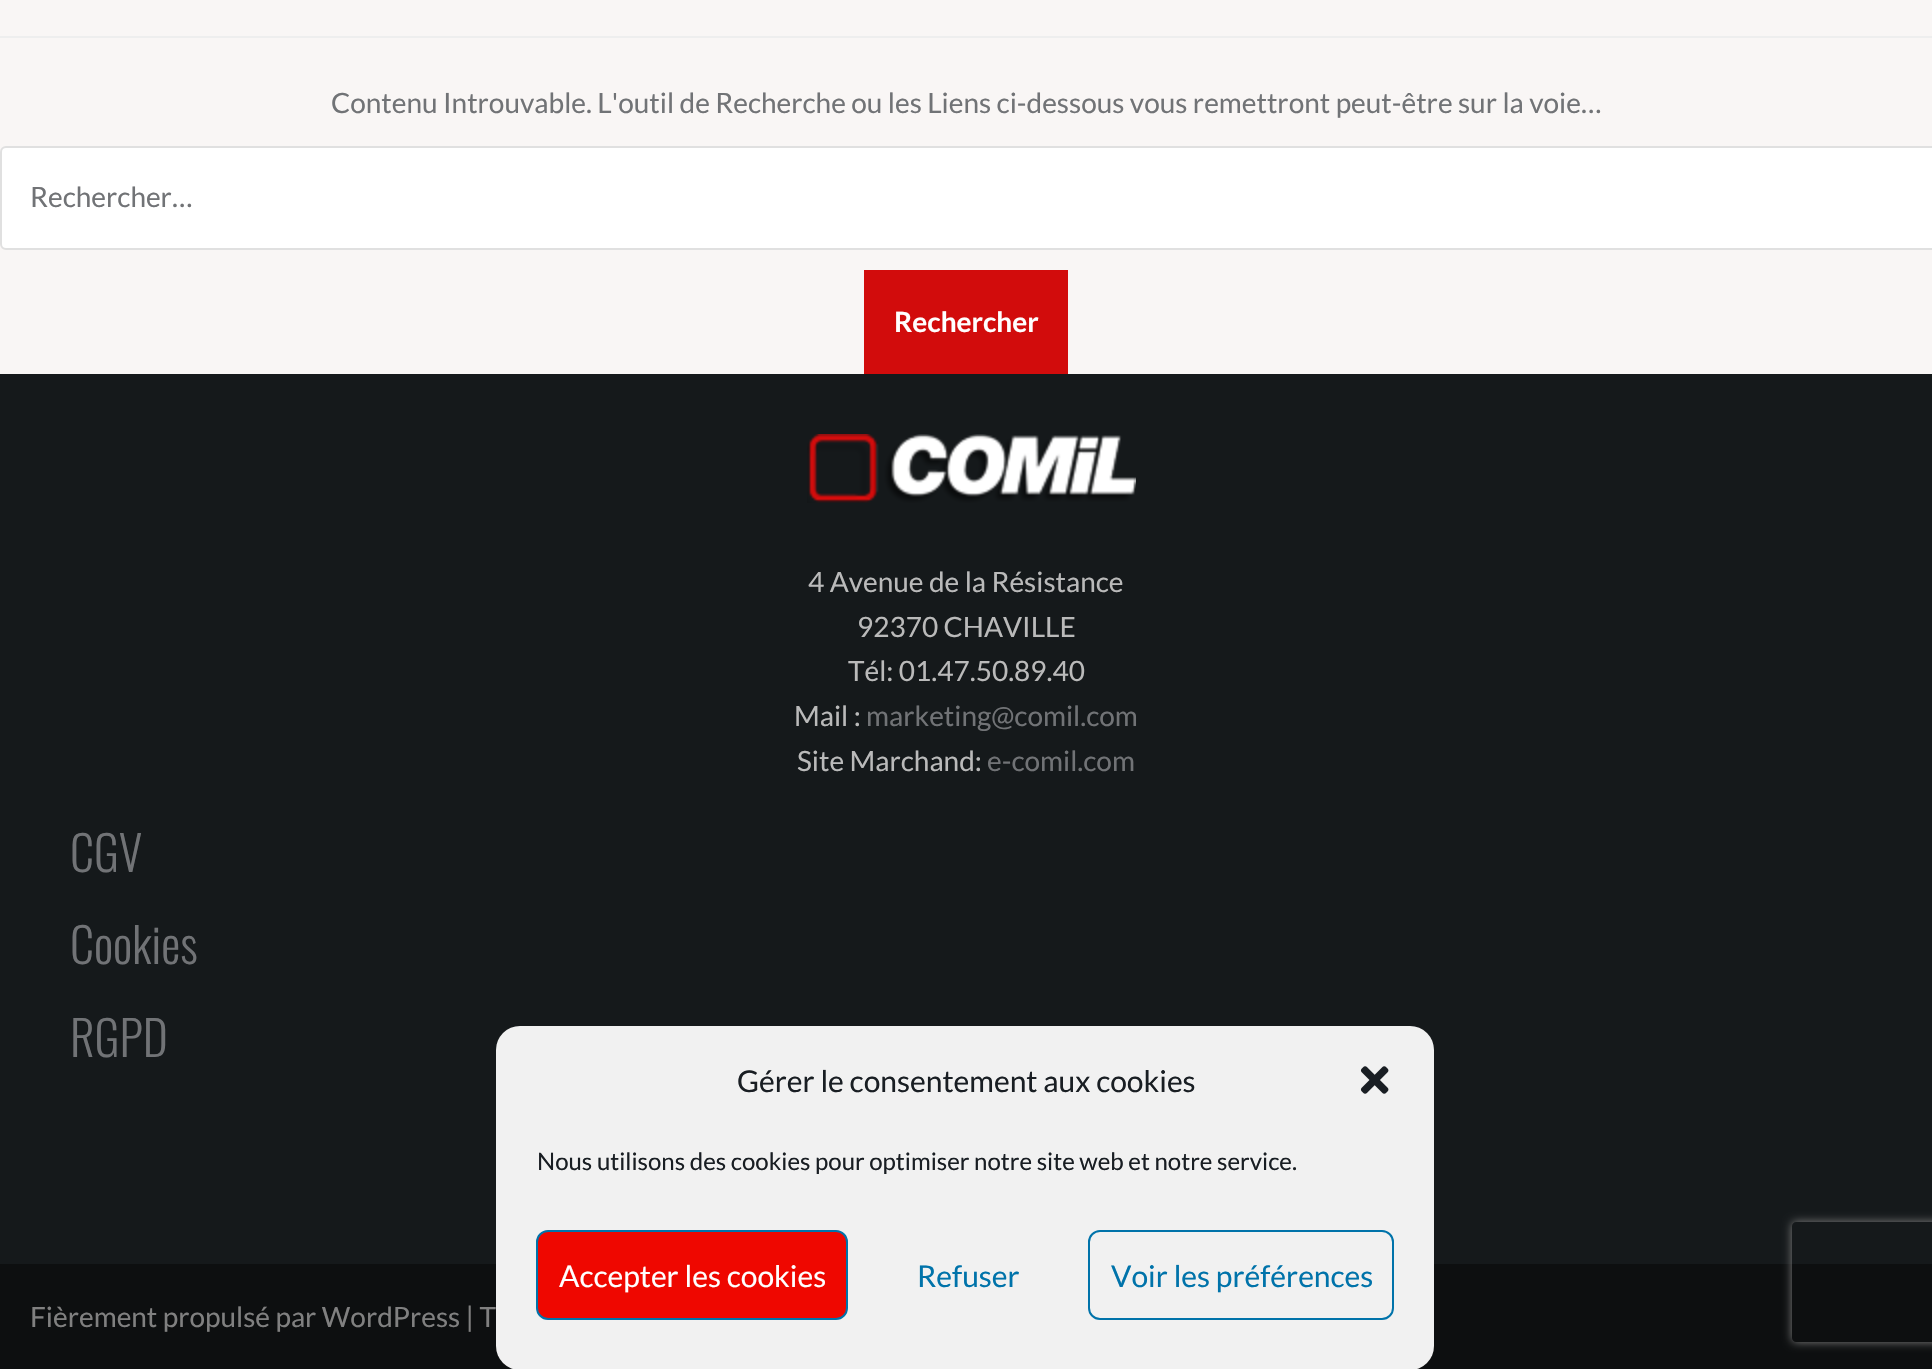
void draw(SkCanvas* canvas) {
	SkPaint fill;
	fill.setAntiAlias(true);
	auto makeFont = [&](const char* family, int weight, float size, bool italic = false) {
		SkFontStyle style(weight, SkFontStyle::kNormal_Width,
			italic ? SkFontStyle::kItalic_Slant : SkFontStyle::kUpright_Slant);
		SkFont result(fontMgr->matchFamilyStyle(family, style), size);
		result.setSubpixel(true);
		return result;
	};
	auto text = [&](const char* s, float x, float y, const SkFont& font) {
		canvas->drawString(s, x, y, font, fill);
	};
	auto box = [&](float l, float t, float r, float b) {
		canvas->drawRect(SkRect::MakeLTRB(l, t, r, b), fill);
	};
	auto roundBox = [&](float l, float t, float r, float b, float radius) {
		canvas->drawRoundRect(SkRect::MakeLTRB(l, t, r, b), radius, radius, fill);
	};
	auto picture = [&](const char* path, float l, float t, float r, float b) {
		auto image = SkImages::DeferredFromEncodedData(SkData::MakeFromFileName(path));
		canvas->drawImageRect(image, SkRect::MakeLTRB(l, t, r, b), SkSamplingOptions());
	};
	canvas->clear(0xFFF9F6F5);
	fill.setColor(0xFFEEEEEE);
	box(0, 36, 1932, 38);
	fill.setColor(0xFFFFFFFF);
	canvas->drawRoundRect(SkRect::MakeLTRB(1, 147, 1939, 249), 5, 5, fill);
	fill.setStyle(SkPaint::kStroke_Style);
	fill.setStrokeWidth(2);
	fill.setColor(0xFFE0E0E0);
	canvas->drawRoundRect(SkRect::MakeLTRB(1, 147, 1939, 249), 5, 5, fill);
	fill.setStyle(SkPaint::kFill_Style);
	fill.setColor(0xFFD20C0C);
	box(864, 270, 1068, 374);
	fill.setColor(0xFF15191B);
	box(0, 374, 1932, 1264);
	picture("image0.png", 807, 434, 1136, 503);
	fill.setColor(0xFF0D0F10);
	box(0, 1264, 1932, 1369);
	fill.setColor(0xFFF1F1F1);
	roundBox(496, 1026, 1434, 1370, 24);
	picture("image1.png", 1360, 1066, 1389, 1094);
	fill.setColor(0xFFEF0700);
	canvas->drawRoundRect(SkRect::MakeLTRB(537, 1231, 847, 1319), 11, 11, fill);
	fill.setStyle(SkPaint::kStroke_Style);
	fill.setColor(0xFF0073AA);
	canvas->drawRoundRect(SkRect::MakeLTRB(537, 1231, 847, 1319), 11, 11, fill);
	canvas->drawRoundRect(SkRect::MakeLTRB(1089, 1231, 1393, 1319), 11, 11, fill);
	canvas->save();
	canvas->clipPath(SkPathBuilder(SkPathFillType::kEvenOdd).moveTo(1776, 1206).lineTo(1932, 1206).lineTo(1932, 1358).lineTo(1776, 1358).close().moveTo(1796, 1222).lineTo(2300, 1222).cubicTo(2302, 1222, 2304, 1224, 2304, 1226).lineTo(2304, 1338).cubicTo(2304, 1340, 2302, 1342, 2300, 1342).lineTo(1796, 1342).cubicTo(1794, 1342, 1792, 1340, 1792, 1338).lineTo(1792, 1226).cubicTo(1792, 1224, 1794, 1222, 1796, 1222).close().detach(), true);
	fill.setStyle(SkPaint::kFill_Style);
	fill.setColor(0xFF808080);
	fill.setMaskFilter(SkMaskFilter::MakeBlur(kNormal_SkBlurStyle, 5));
	canvas->drawRoundRect(SkRect::MakeLTRB(1792, 1222, 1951, 1342), 4, 4, fill);
	fill.setMaskFilter(nullptr);
	canvas->restore();
	auto font1 = makeFont("Lato", 400, 28);
	fill.setColor(0xFF717376);
	text("Contenu Introuvable. L'outil de Recherche ou les Liens ci-dessous vous remettront peut-être sur la voie…", 331, 113, font1);
	text("Rechercher…", 30, 207, font1);
	auto font2 = makeFont("Lato", 700, 28);
	fill.setColor(0xFFFFFFFF);
	text("Rechercher", 894, 332, font2);
	fill.setColor(0xFFBABABA);
	text("4 Avenue de la Résistance", 808, 592, font1);
	text("92370 CHAVILLE", 857, 637, font1);
	text("Tél: 01.47.50.89.40", 848, 681, font1);
	text("Mail :", 794, 726, font1);
	fill.setColor(0xFF717376);
	text("marketing@comil.com", 866, 726, font1);
	fill.setColor(0xFFBABABA);
	text("Site Marchand:", 797, 771, font1);
	fill.setColor(0xFF717376);
	text("e-comil.com", 987, 771, font1);
	auto font3 = makeFont("Oswald", 300, 48);
	text("CGV", 70, 872, font3);
	text("Cookies", 70, 964, font3);
	text("RGPD", 70, 1057, font3);
	fill.setColor(0xFF808080);
	text("Fièrement propulsé par WordPress | T", 30, 1327, font1);
	auto font4 = makeFont("Lato", 400, 30);
	fill.setColor(0xFF191E23);
	text("Gérer le consentement aux cookies", 737, 1092, font4);
	auto font5 = makeFont("Lato", 400, 24);
	text("Nous utilisons des cookies pour optimiser notre site web et notre service.", 537, 1170, font5);
	fill.setColor(0xFFFFFFFF);
	text("Accepter les cookies", 559, 1287, font4);
	fill.setColor(0xFF0073AA);
	text("Refuser", 917, 1287, font4);
	text("Voir les préférences", 1111, 1287, font4);
}
